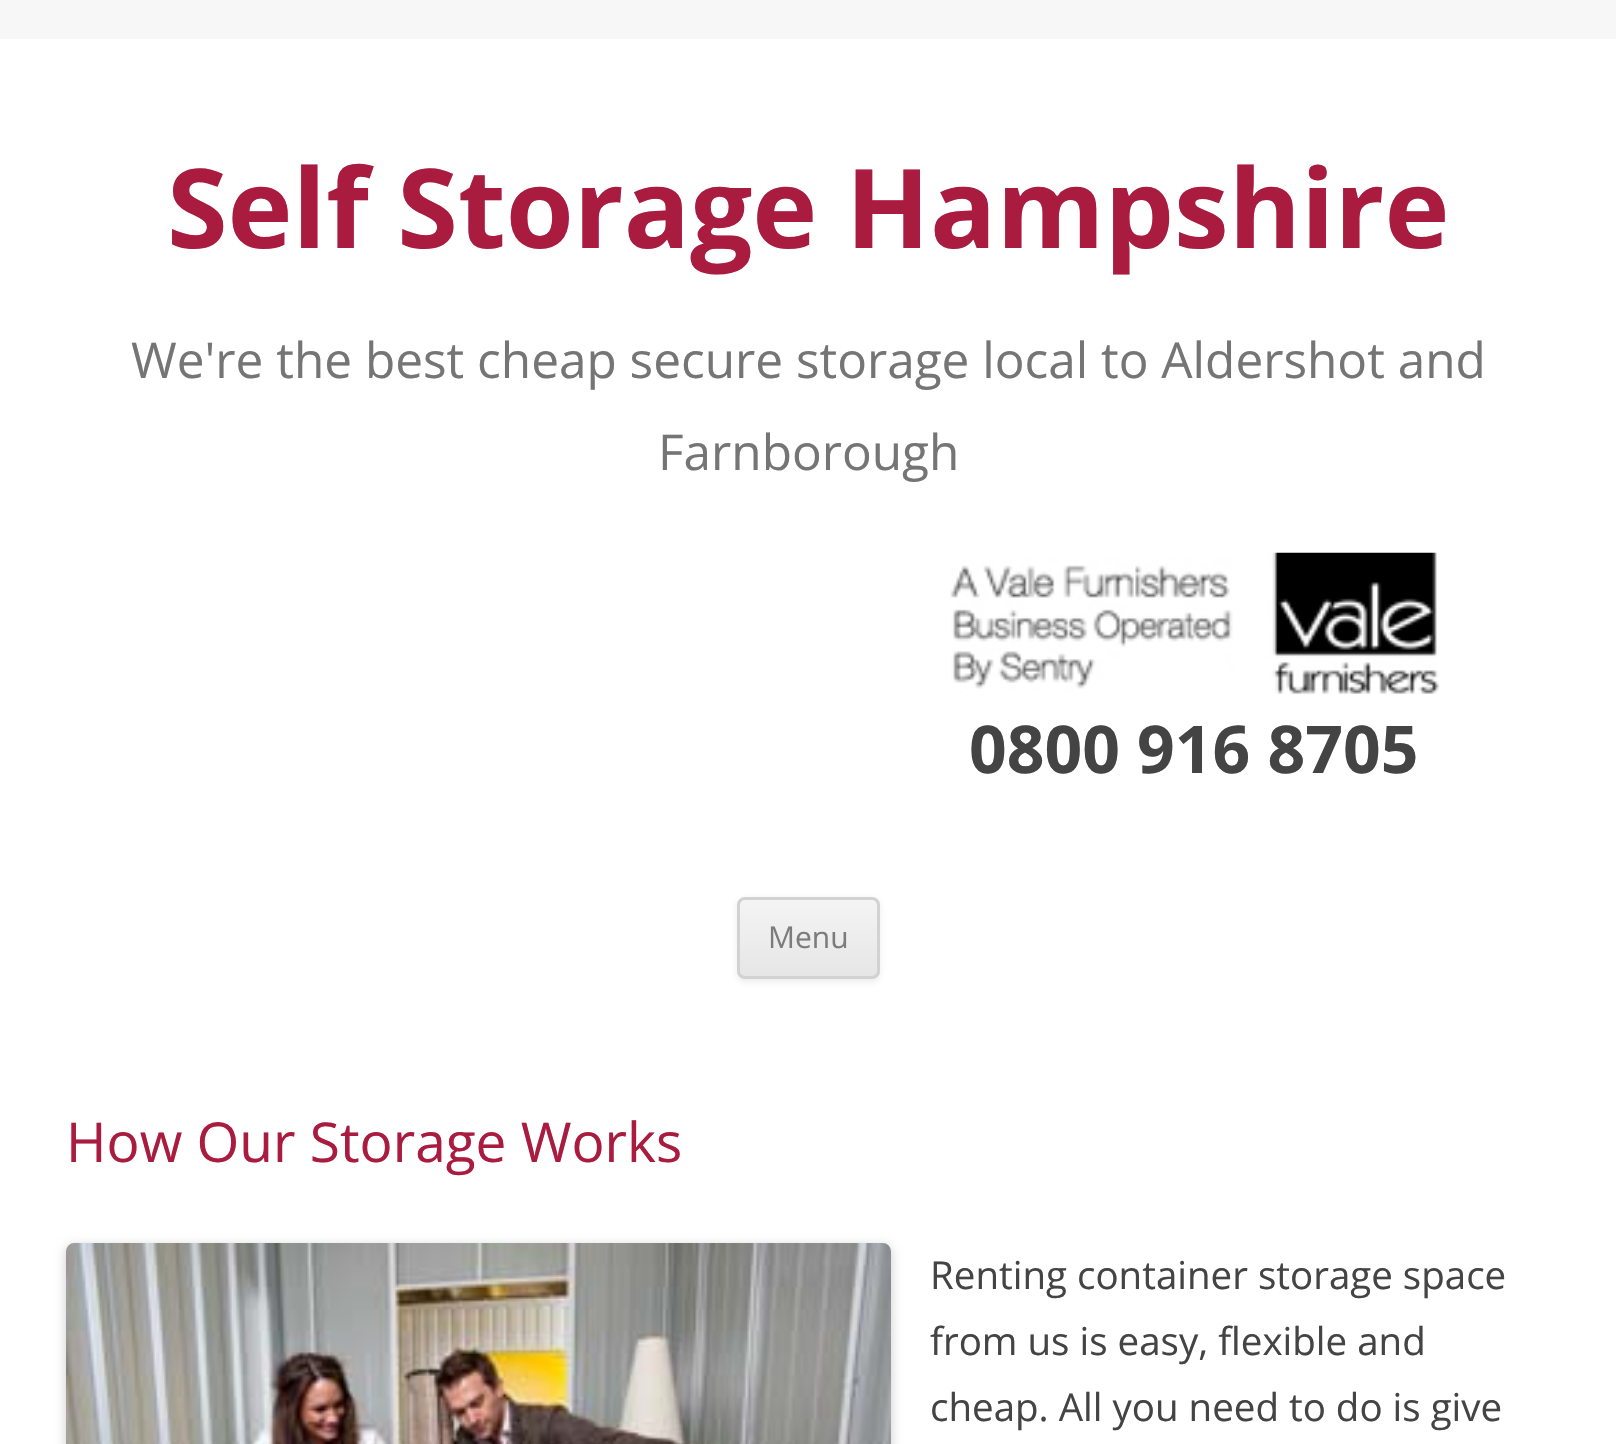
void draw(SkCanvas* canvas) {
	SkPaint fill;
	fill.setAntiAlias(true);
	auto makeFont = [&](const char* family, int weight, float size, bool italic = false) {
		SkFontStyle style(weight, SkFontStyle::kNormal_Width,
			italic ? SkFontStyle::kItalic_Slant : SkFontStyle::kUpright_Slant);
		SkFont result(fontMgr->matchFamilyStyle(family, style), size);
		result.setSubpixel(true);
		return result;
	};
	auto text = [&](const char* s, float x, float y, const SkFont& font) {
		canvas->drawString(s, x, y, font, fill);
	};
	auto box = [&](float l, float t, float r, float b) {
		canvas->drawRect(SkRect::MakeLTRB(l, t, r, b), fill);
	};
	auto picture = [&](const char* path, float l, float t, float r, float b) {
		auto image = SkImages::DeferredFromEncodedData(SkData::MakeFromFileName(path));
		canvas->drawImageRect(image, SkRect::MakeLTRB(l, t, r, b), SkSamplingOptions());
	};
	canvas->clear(0xFFF7F7F7);
	fill.setColor(0xFFFFFFFF);
	box(0, 39, 1616, 1444);
	picture("image0.png", 950, 552, 1440, 694);
	fill.setColor(0x1A404040);
	fill.setMaskFilter(SkMaskFilter::MakeBlur(kNormal_SkBlurStyle, 3));
	canvas->drawRoundRect(SkRect::MakeLTRB(737, 899, 880, 982), 8, 8, fill);
	fill.setMaskFilter(nullptr);
	canvas->save();
	canvas->clipPath(SkPathBuilder().moveTo(745, 897).lineTo(872, 897).cubicTo(876.5f, 897, 880, 900.5f, 880, 905).lineTo(880, 971).cubicTo(880, 975.5f, 876.5f, 979, 872, 979).lineTo(745, 979).cubicTo(740.5f, 979, 737, 975.5f, 737, 971).lineTo(737, 905).cubicTo(737, 900.5f, 740.5f, 897, 745, 897).close().detach(), true);
	{
		const SkColor colors[] = {0xFFF4F4F4, 0xFFE6E6E6};
		const float stops[] = {0, 1};
		const SkPoint ends[] = {{809, 899}, {809, 976}};
		fill.setShader(SkGradientShader::MakeLinear(ends, colors, stops, 2, SkTileMode::kClamp));
		fill.setAlpha(255);
	}
	box(737, 899, 880, 976);
	canvas->restore();
	fill.setStyle(SkPaint::kStroke_Style);
	fill.setStrokeWidth(3);
	fill.setShader(nullptr);
	fill.setColor(0xFFD2D2D2);
	canvas->drawRoundRect(SkRect::MakeLTRB(738.5f, 898.5f, 878.5f, 977.5f), 6.5f, 6.5f, fill);
	fill.setStyle(SkPaint::kFill_Style);
	fill.setColor(0x33000000);
	fill.setMaskFilter(SkMaskFilter::MakeBlur(kNormal_SkBlurStyle, 5.5f));
	canvas->drawRoundRect(SkRect::MakeLTRB(66, 1246, 891, 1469), 8, 8, fill);
	fill.setMaskFilter(nullptr);
	picture("image1.png", 66, 1243, 891, 1444);
	auto font1 = makeFont("Open Sans", 700, 110);
	fill.setColor(0xFFAA1C3F);
	text("Self Storage Hampshire", 167, 248, font1);
	auto font2 = makeFont("Open Sans", 400, 49.5f);
	fill.setColor(0xFF757575);
	text("We're the best cheap secure storage local to Aldershot and", 131, 378, font2);
	text("Farnborough", 658, 470, font2);
	auto font3 = makeFont("Open Sans", 700, 66);
	fill.setColor(0xFF444444);
	text("0800 916 8705", 969, 773, font3);
	auto font4 = makeFont("Open Sans", 400, 30);
	fill.setColor(0xFF7C7C7C);
	text("Menu", 768, 948, font4);
	auto font5 = makeFont("Open Sans", 400, 55);
	fill.setColor(0xFFAA1C3F);
	text("How Our Storage Works", 66, 1162, font5);
	auto font6 = makeFont("Open Sans", 400, 38.5f);
	fill.setColor(0xFF444444);
	text("Renting container storage space", 930, 1289, font6);
	text("from us is easy, flexible and", 930, 1355, font6);
	text("cheap. All you need to do is give", 930, 1421, font6);
}
